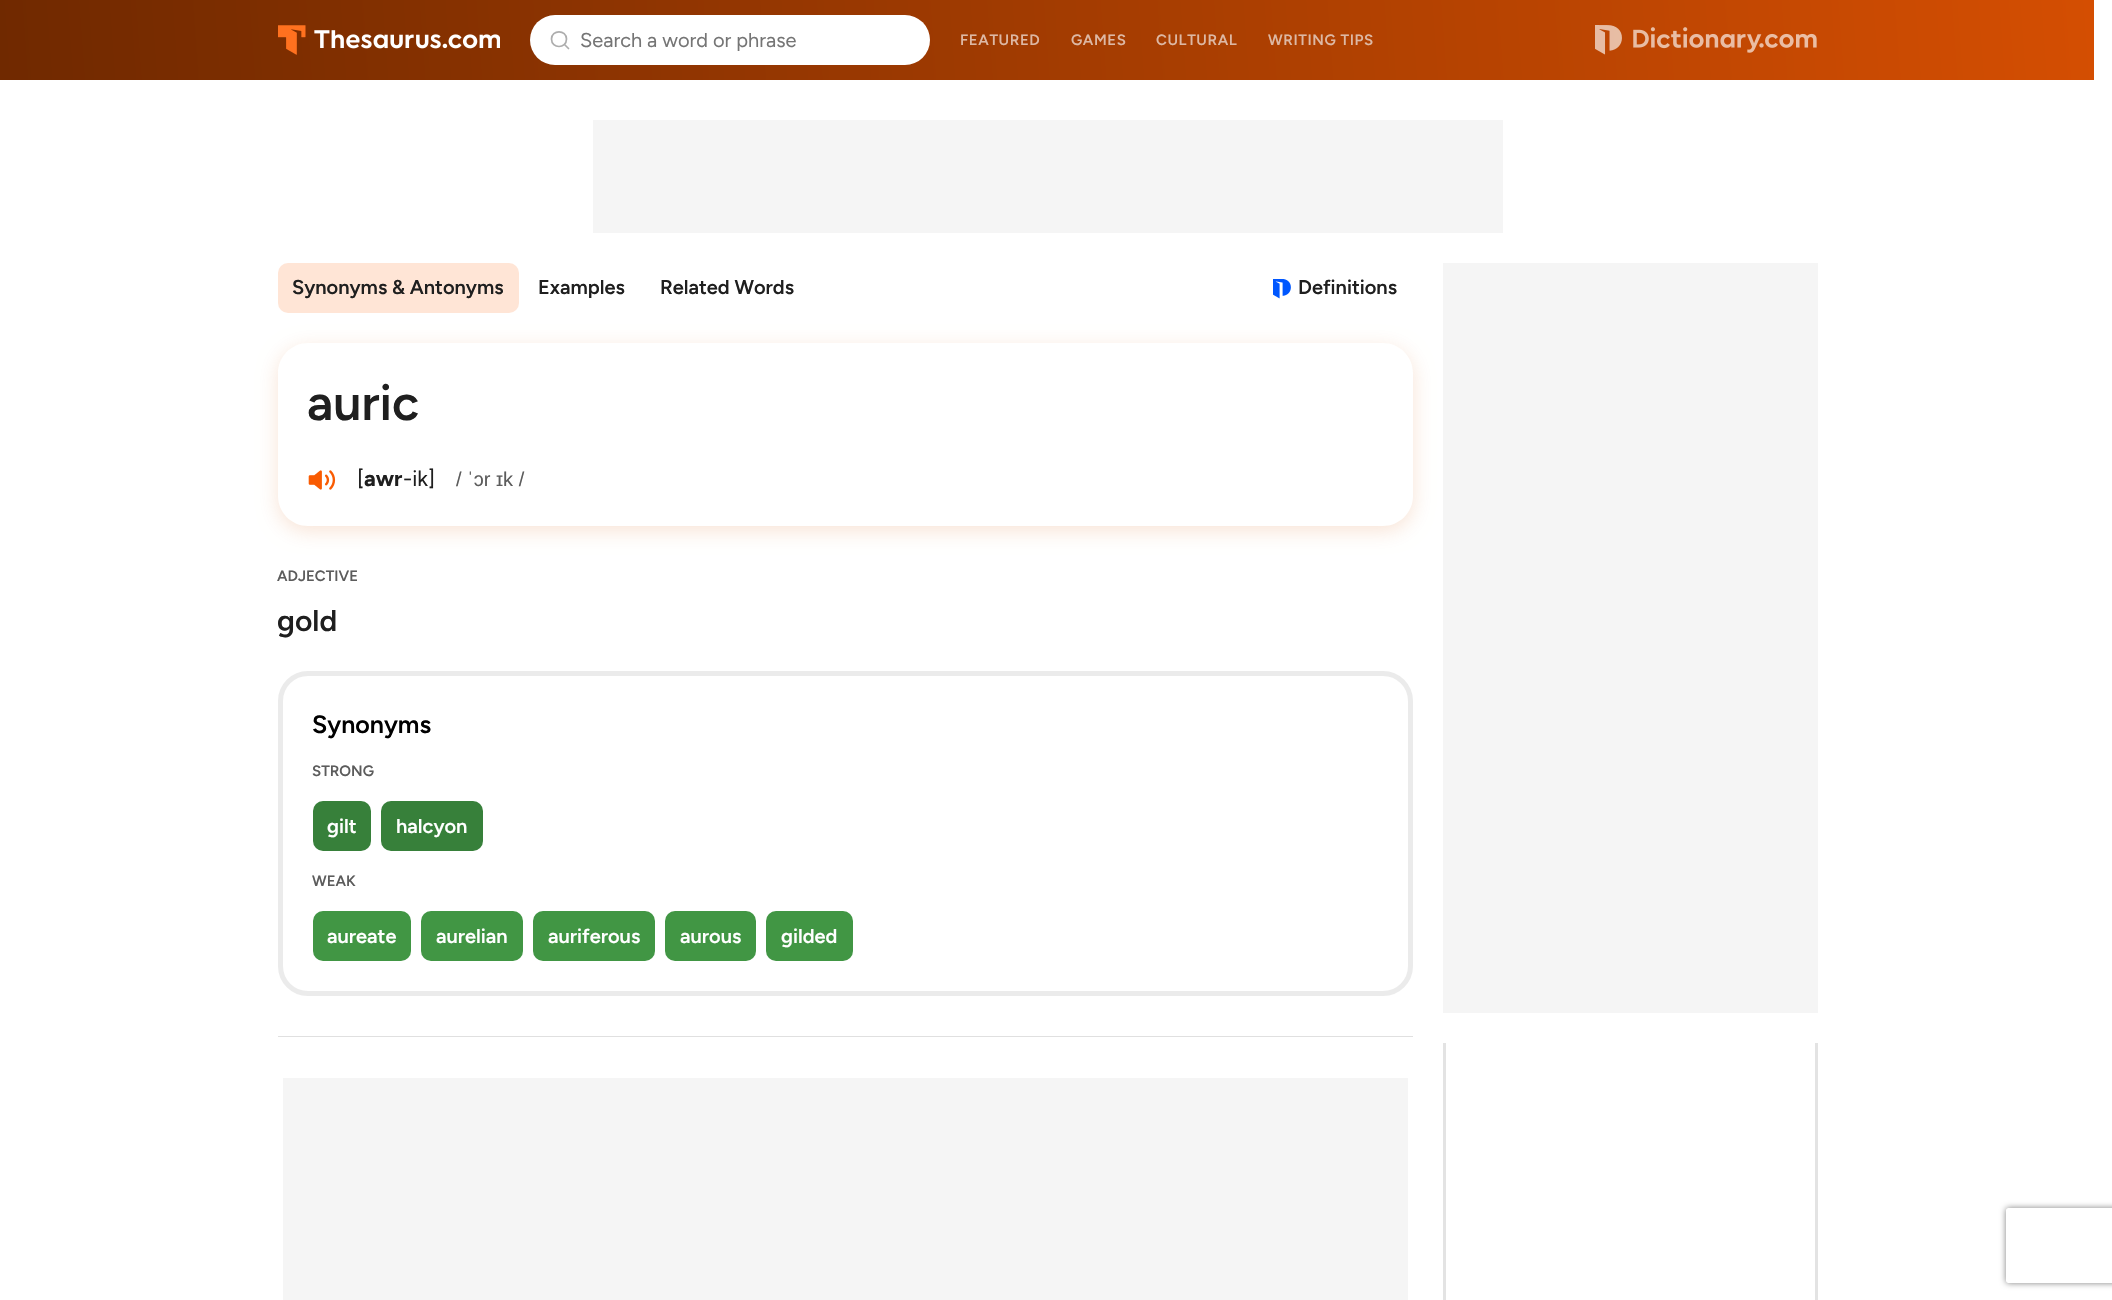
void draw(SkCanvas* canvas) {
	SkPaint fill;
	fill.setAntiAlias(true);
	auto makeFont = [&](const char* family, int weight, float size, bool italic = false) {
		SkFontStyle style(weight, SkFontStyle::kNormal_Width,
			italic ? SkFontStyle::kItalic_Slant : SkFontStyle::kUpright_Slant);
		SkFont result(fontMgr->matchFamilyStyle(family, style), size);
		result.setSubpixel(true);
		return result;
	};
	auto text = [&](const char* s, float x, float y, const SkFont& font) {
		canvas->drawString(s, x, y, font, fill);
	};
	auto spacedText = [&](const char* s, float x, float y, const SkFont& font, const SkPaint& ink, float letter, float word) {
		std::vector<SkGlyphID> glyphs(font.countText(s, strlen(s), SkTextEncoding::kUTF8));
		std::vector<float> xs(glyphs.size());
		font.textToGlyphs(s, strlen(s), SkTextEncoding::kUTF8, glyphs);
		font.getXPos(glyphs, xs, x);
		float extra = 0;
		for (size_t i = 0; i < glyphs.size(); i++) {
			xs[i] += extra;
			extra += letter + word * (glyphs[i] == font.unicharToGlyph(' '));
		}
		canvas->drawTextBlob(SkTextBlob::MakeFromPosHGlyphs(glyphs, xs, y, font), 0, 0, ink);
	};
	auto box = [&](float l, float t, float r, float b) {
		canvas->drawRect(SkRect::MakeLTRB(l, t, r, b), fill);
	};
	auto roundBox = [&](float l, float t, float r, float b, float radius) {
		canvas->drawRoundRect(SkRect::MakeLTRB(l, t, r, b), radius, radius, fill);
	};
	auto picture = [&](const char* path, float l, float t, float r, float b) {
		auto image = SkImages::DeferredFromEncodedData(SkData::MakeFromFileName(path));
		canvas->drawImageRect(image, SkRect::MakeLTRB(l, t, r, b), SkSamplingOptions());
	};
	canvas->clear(0xFFFFFFFF);
	{
		const SkColor colors[] = {0xFF702900, 0xFFD44E02};
		const float stops[] = {0, 1};
		const SkPoint ends[] = {{2.7f, 117}, {2091, -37}};
		fill.setShader(SkGradientShader::MakeLinear(ends, colors, stops, 2, SkTileMode::kClamp));
		fill.setAlpha(255);
	}
	box(0, 0, 2094, 80);
	picture("image0.png", 278, 25, 500, 55);
	fill.setShader(nullptr);
	fill.setColor(0xFFFFFFFF);
	roundBox(530, 15, 930, 65, 25);
	fill.setStyle(SkPaint::kStroke_Style);
	fill.setStrokeWidth(1.7f);
	fill.setStrokeCap(SkPaint::kRound_Cap);
	fill.setStrokeJoin(SkPaint::kRound_Join);
	fill.setColor(0xFFADADAD);
	canvas->drawPath(SkPathBuilder().moveTo(568.5f, 48.5f).lineTo(564.5f, 44.5f).moveTo(566.5f, 39).cubicTo(566.5f, 49, 551.5f, 49, 551.5f, 39).cubicTo(551.5f, 29.5f, 566.5f, 29.5f, 566.5f, 39).close().detach(), fill);
	picture("image1.png", 1595, 25, 1817, 55);
	fill.setStyle(SkPaint::kFill_Style);
	fill.setColor(0xFFF5F5F5);
	box(593, 120, 1503, 233);
	fill.setColor(0xFFFFE5D6);
	roundBox(278, 263, 519, 313, 10);
	picture("image2.png", 1273, 279, 1291, 299);
	canvas->save();
	canvas->clipPath(SkPathBuilder(SkPathFillType::kEvenOdd).moveTo(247, 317).lineTo(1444, 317).lineTo(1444, 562).lineTo(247, 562).close().moveTo(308, 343).lineTo(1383, 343).cubicTo(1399.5f, 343, 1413, 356.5f, 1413, 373).lineTo(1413, 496).cubicTo(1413, 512.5f, 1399.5f, 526, 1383, 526).lineTo(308, 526).cubicTo(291.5f, 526, 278, 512.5f, 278, 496).lineTo(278, 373).cubicTo(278, 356.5f, 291.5f, 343, 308, 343).close().detach(), true);
	fill.setColor(0x29D44E02);
	fill.setMaskFilter(SkMaskFilter::MakeBlur(kNormal_SkBlurStyle, 10));
	canvas->drawRoundRect(SkRect::MakeLTRB(278, 348, 1413, 531), 30, 30, fill);
	fill.setMaskFilter(nullptr);
	canvas->restore();
	picture("image3.png", 308, 470, 336, 490);
	fill.setStyle(SkPaint::kStroke_Style);
	fill.setStrokeWidth(5);
	fill.setStrokeCap(SkPaint::kButt_Cap);
	fill.setStrokeJoin(SkPaint::kMiter_Join);
	fill.setColor(0xFFEBEBEB);
	canvas->drawRoundRect(SkRect::MakeLTRB(280.5f, 673.5f, 1410.5f, 993.5f), 27.5f, 27.5f, fill);
	fill.setStyle(SkPaint::kFill_Style);
	fill.setColor(0xFF37803A);
	roundBox(313, 801, 371, 851, 10);
	roundBox(381, 801, 483, 851, 10);
	fill.setColor(0xFF419644);
	roundBox(313, 911, 411, 961, 10);
	roundBox(421, 911, 523, 961, 10);
	roundBox(533, 911, 655, 961, 10);
	roundBox(665, 911, 756, 961, 10);
	roundBox(766, 911, 853, 961, 10);
	fill.setColor(0xFFE0E0E0);
	box(278, 1036, 1413, 1037);
	fill.setColor(0xFFF5F5F5);
	box(283, 1078, 1408, 1300);
	box(1443, 263, 1818, 1013);
	canvas->save();
	canvas->clipRect(SkRect::MakeLTRB(1443, 1043, 1818, 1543));
	fill.setStyle(SkPaint::kStroke_Style);
	fill.setStrokeWidth(3);
	fill.setColor(0xFFE3E3E3);
	canvas->drawRoundRect(SkRect::MakeLTRB(1444.5f, 919.5f, 1816.5f, 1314.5f), 11.5f, 11.5f, fill);
	canvas->restore();
	canvas->save();
	canvas->clipPath(SkPathBuilder(SkPathFillType::kEvenOdd).moveTo(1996, 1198).lineTo(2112, 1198).lineTo(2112, 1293).lineTo(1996, 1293).close().moveTo(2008.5f, 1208).lineTo(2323.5f, 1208).cubicTo(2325, 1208, 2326, 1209, 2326, 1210.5f).lineTo(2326, 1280.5f).cubicTo(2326, 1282, 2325, 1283, 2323.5f, 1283).lineTo(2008.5f, 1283).cubicTo(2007, 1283, 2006, 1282, 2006, 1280.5f).lineTo(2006, 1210.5f).cubicTo(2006, 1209, 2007, 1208, 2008.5f, 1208).close().detach(), true);
	fill.setStyle(SkPaint::kFill_Style);
	fill.setColor(0xFF808080);
	fill.setMaskFilter(SkMaskFilter::MakeBlur(kNormal_SkBlurStyle, 3));
	canvas->drawRoundRect(SkRect::MakeLTRB(2006, 1208, 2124, 1283), 2.5f, 2.5f, fill);
	fill.setMaskFilter(nullptr);
	canvas->restore();
	auto font1 = makeFont("Figtree", 400, 20);
	fill.setColor(0xFF757575);
	text("Search a word or phrase", 580, 47, font1);
	auto font2 = makeFont("Figtree", 600, 15);
	fill.setColor(0xFFDDB8A4);
	spacedText("FEATURED", 960, 45, font2, fill, 0.6f, 0);
	spacedText("GAMES", 1071, 45, font2, fill, 0.6f, 0);
	spacedText("CULTURAL", 1156, 45, font2, fill, 0.6f, 0);
	spacedText("WRITING TIPS", 1268, 45, font2, fill, 0.6f, 0);
	auto font3 = makeFont("Figtree", 600, 20);
	fill.setColor(0xFF1F1F1F);
	text("Synonyms & Antonyms", 292, 294, font3);
	text("Examples", 538, 294, font3);
	text("Related Words", 660, 294, font3);
	text("Definitions", 1298, 294, font3);
	auto font4 = makeFont("Figtree", 600, 50);
	text("auric", 307, 420, font4);
	auto font5 = makeFont("Figtree", 400, 22);
	text("[", 357, 486, font5);
	auto font6 = makeFont("Figtree", 700, 22);
	text("awr", 364, 486, font6);
	text("-ik]", 403, 486, font5);
	auto font7 = makeFont("Liberation Sans", 400, 20);
	fill.setColor(0xFF5C5C5C);
	text("/ ˈɔr ɪk /", 456, 486, font7);
	text("ADJECTIVE", 277, 581, font2);
	auto font8 = makeFont("Figtree", 600, 30);
	fill.setColor(0xFF1F1F1F);
	text("gold", 277, 631, font8);
	auto font9 = makeFont("Figtree", 600, 25);
	fill.setColor(0xFF000000);
	text("Synonyms", 312, 733, font9);
	fill.setColor(0xFF5C5C5C);
	text("STRONG", 312, 776, font2);
	fill.setColor(0xFFFFFFFF);
	text("gilt", 327, 833, font3);
	text("halcyon", 396, 833, font3);
	fill.setColor(0xFF5C5C5C);
	text("WEAK", 312, 886, font2);
	fill.setColor(0xFFFFFFFF);
	text("aureate", 327, 943, font3);
	text("aurelian", 436, 943, font3);
	text("auriferous", 548, 943, font3);
	text("aurous", 680, 943, font3);
	text("gilded", 781, 943, font3);
}
